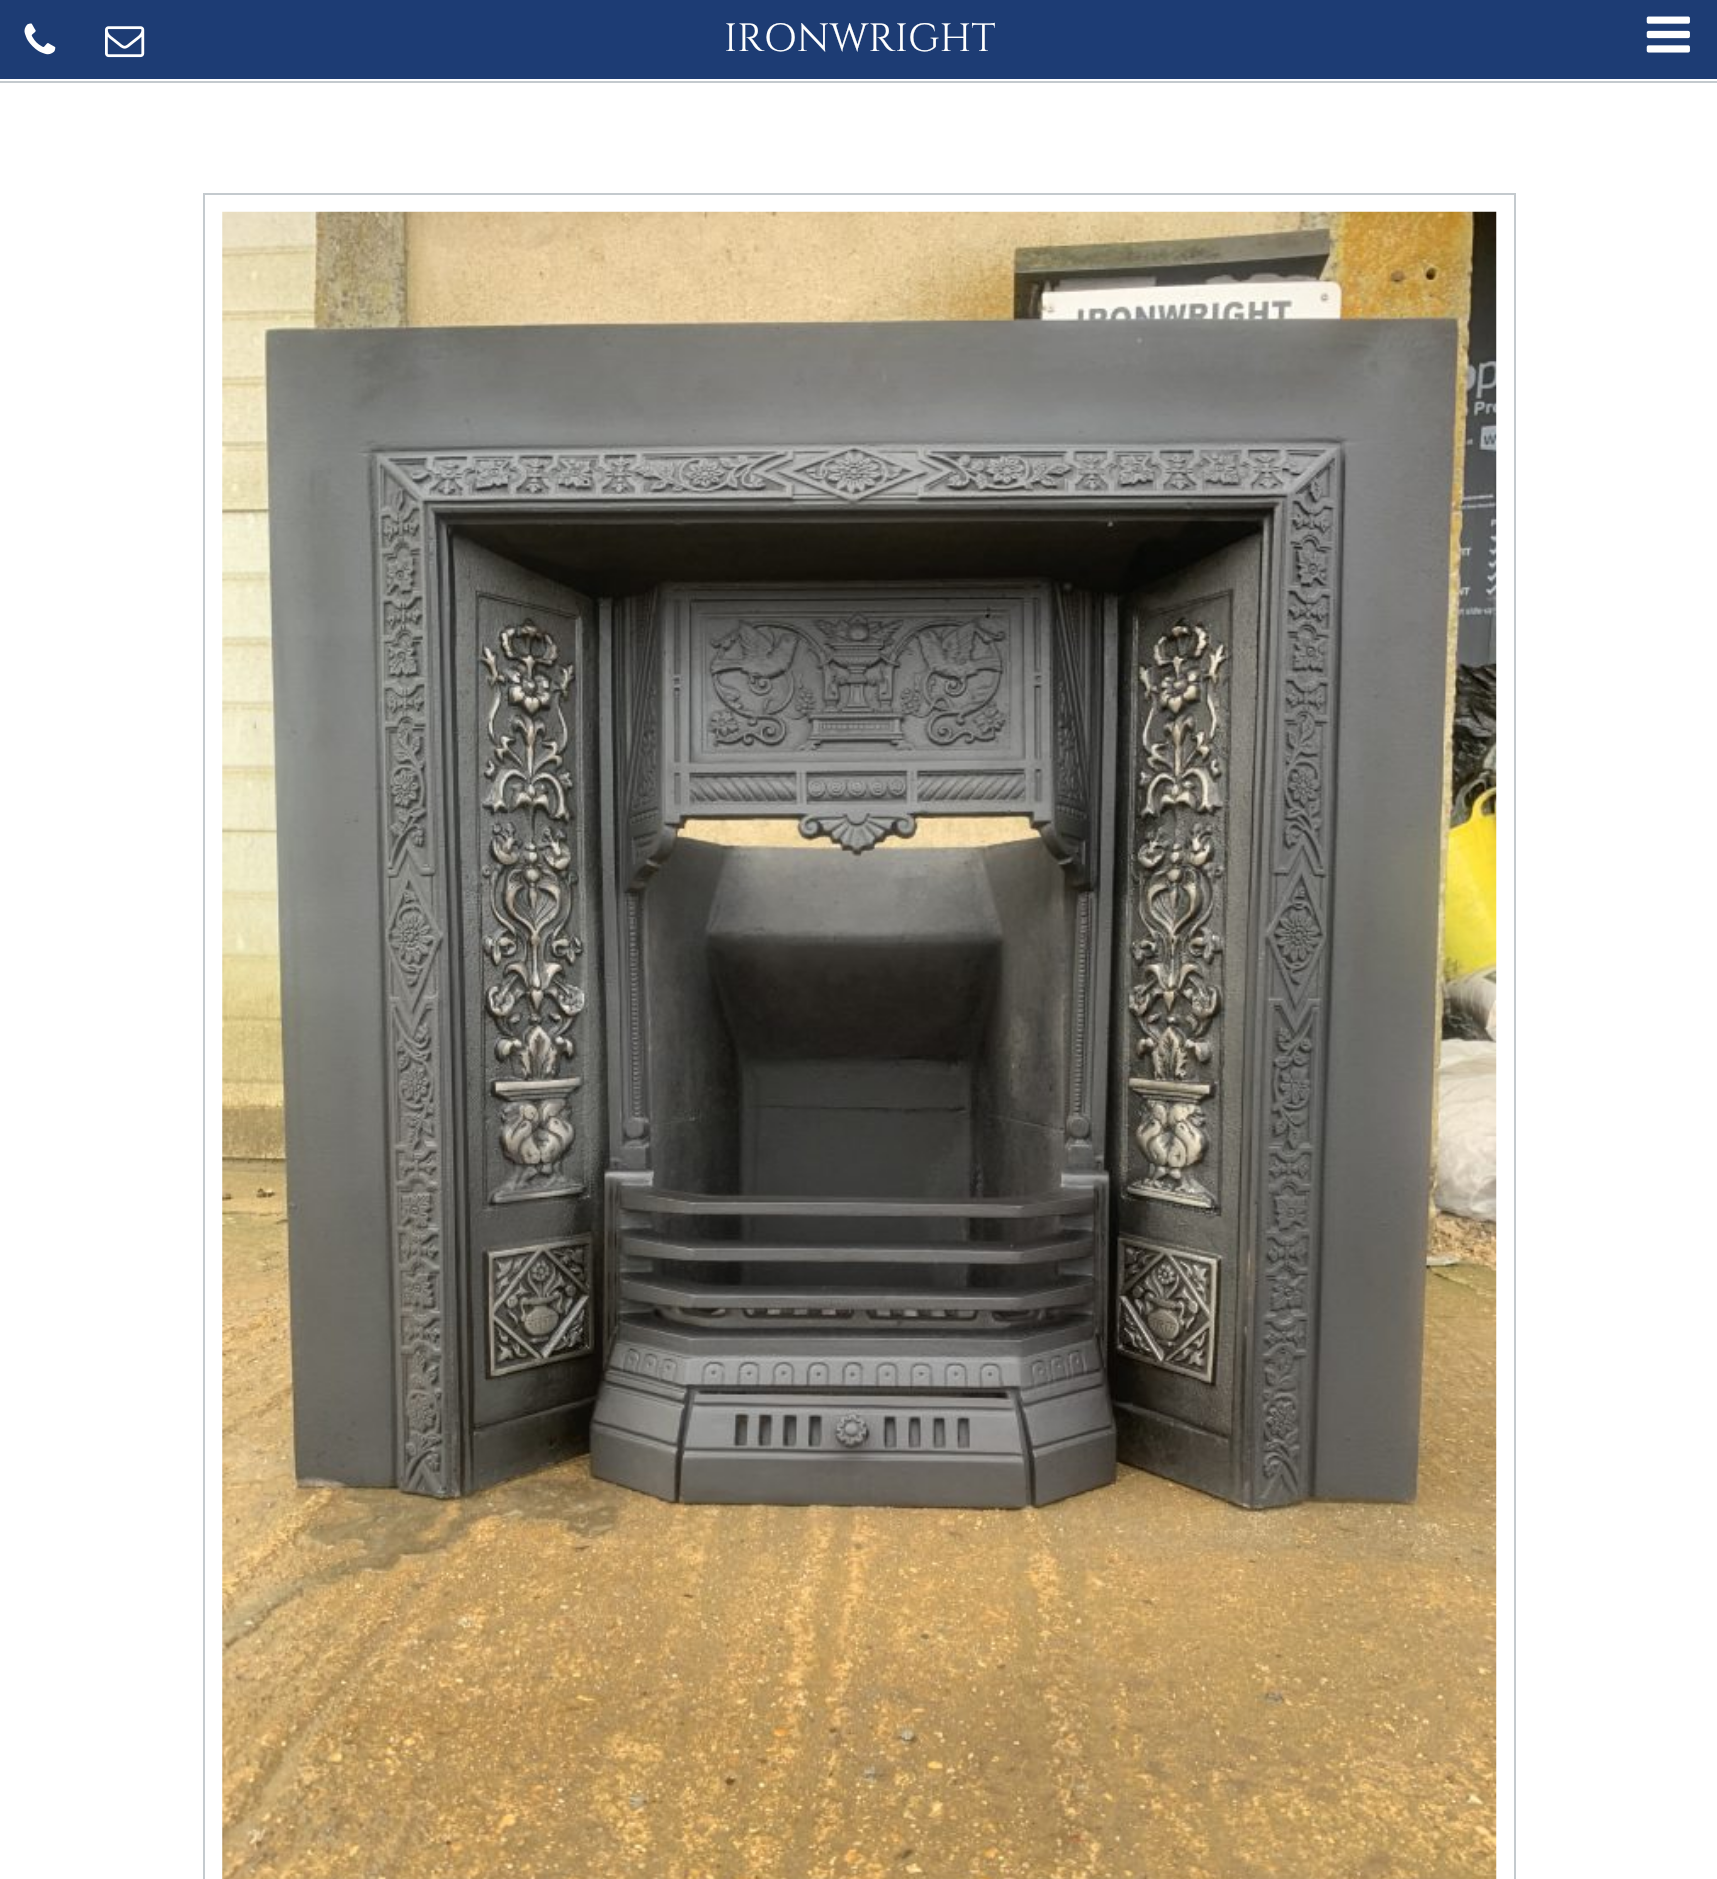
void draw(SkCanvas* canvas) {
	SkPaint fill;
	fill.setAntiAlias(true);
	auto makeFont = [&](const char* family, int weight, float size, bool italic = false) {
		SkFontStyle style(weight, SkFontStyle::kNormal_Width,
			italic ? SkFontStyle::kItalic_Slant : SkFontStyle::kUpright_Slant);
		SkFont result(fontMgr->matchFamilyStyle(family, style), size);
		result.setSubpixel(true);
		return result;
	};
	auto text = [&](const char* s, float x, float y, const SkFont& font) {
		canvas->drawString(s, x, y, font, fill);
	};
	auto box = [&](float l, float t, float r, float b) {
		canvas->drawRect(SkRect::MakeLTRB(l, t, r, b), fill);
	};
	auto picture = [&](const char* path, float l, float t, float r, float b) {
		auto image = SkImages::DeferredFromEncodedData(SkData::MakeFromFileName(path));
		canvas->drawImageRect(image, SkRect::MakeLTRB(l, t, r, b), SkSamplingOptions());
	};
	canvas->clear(0xFFFFFFFF);
	fill.setColor(0xFF1D3C74);
	box(0, 0, 1717, 79);
	fill.setColor(0xFFC4CACE);
	box(0, 81, 1717, 83);
	picture("image0.png", 24, 23, 56, 55);
	picture("image1.png", 105, 26, 145, 58);
	picture("image2.png", 1646, 16, 1690, 53);
	fill.setStyle(SkPaint::kStroke_Style);
	fill.setStrokeWidth(2);
	canvas->drawRect(SkRect::MakeLTRB(204, 194, 1515, 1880), fill);
	picture("image3.png", 222, 211, 1497, 1879);
	auto font1 = makeFont("Cinzel", 400, 39.25f);
	fill.setStyle(SkPaint::kFill_Style);
	fill.setColor(0xFFFFFFFF);
	text("IRONWRIGHT", 724, 51, font1);
}
